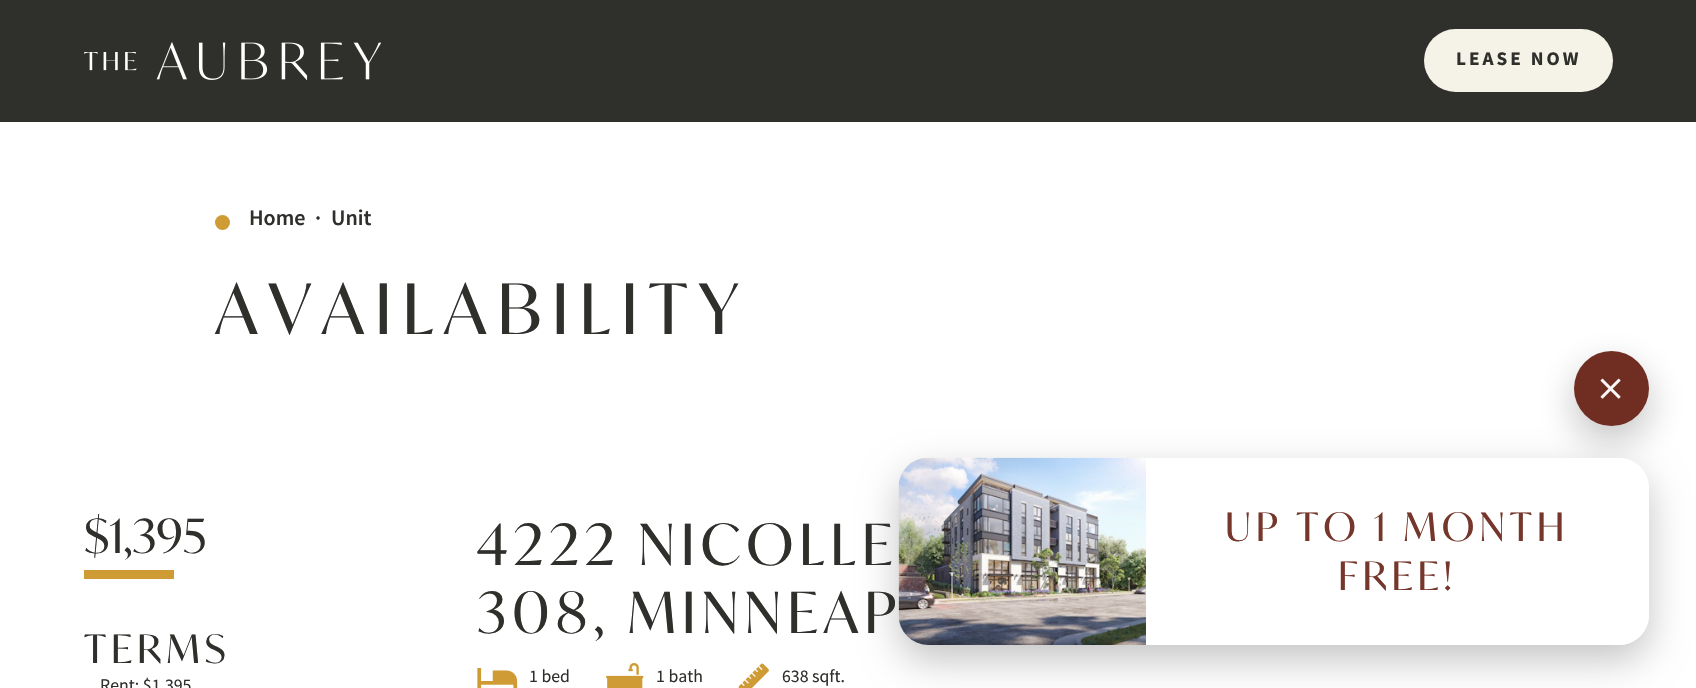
void draw(SkCanvas* canvas) {
	SkPaint fill;
	fill.setAntiAlias(true);
	auto makeFont = [&](const char* family, int weight, float size, bool italic = false) {
		SkFontStyle style(weight, SkFontStyle::kNormal_Width,
			italic ? SkFontStyle::kItalic_Slant : SkFontStyle::kUpright_Slant);
		SkFont result(fontMgr->matchFamilyStyle(family, style), size);
		result.setSubpixel(true);
		return result;
	};
	auto text = [&](const char* s, float x, float y, const SkFont& font) {
		canvas->drawString(s, x, y, font, fill);
	};
	auto spacedText = [&](const char* s, float x, float y, const SkFont& font, const SkPaint& ink, float letter, float word) {
		std::vector<SkGlyphID> glyphs(font.countText(s, strlen(s), SkTextEncoding::kUTF8));
		std::vector<float> xs(glyphs.size());
		font.textToGlyphs(s, strlen(s), SkTextEncoding::kUTF8, glyphs);
		font.getXPos(glyphs, xs, x);
		float extra = 0;
		for (size_t i = 0; i < glyphs.size(); i++) {
			xs[i] += extra;
			extra += letter + word * (glyphs[i] == font.unicharToGlyph(' '));
		}
		canvas->drawTextBlob(SkTextBlob::MakeFromPosHGlyphs(glyphs, xs, y, font), 0, 0, ink);
	};
	auto box = [&](float l, float t, float r, float b) {
		canvas->drawRect(SkRect::MakeLTRB(l, t, r, b), fill);
	};
	auto roundBox = [&](float l, float t, float r, float b, float radius) {
		canvas->drawRoundRect(SkRect::MakeLTRB(l, t, r, b), radius, radius, fill);
	};
	auto picture = [&](const char* path, float l, float t, float r, float b) {
		auto image = SkImages::DeferredFromEncodedData(SkData::MakeFromFileName(path));
		canvas->drawImageRect(image, SkRect::MakeLTRB(l, t, r, b), SkSamplingOptions());
	};
	canvas->clear(0xFFFFFFFF);
	fill.setColor(0xFF2F2F2C);
	box(0, 0, 1696, 122);
	picture("image0.png", 84, 42, 381, 80);
	fill.setColor(0xFFF5F3E8);
	roundBox(1424, 29, 1613, 92, 31.5f);
	fill.setColor(0xFFCE9B35);
	canvas->drawCircle(222.5f, 222.5f, 7.5f, fill);
	box(84, 570, 174, 579);
	picture("image1.png", 477, 668, 518, 688);
	picture("image2.png", 606, 663, 644, 688);
	picture("image3.png", 738, 663, 769, 688);
	fill.setColor(0x400A0A0A);
	fill.setMaskFilter(SkMaskFilter::MakeBlur(kNormal_SkBlurStyle, 19));
	canvas->drawRoundRect(SkRect::MakeLTRB(1574, 366, 1649, 441), 37.5f, 37.5f, fill);
	fill.setMaskFilter(nullptr);
	fill.setColor(0xFF702E23);
	canvas->drawCircle(1611.5f, 388.5f, 37.5f, fill);
	picture("image4.png", 1600, 378, 1621, 399);
	canvas->save();
	canvas->clipPath(SkPathBuilder(SkPathFillType::kEvenOdd).moveTo(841, 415).lineTo(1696, 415).lineTo(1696, 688).lineTo(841, 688).close().moveTo(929, 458).lineTo(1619, 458).cubicTo(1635.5f, 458, 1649, 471.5f, 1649, 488).lineTo(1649, 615).cubicTo(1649, 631.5f, 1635.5f, 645, 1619, 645).lineTo(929, 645).cubicTo(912.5f, 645, 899, 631.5f, 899, 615).lineTo(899, 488).cubicTo(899, 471.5f, 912.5f, 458, 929, 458).close().detach(), true);
	fill.setColor(0x3B000000);
	fill.setMaskFilter(SkMaskFilter::MakeBlur(kNormal_SkBlurStyle, 19));
	canvas->drawRoundRect(SkRect::MakeLTRB(899, 473, 1649, 660), 30, 30, fill);
	fill.setMaskFilter(nullptr);
	canvas->restore();
	fill.setColor(0xEBFFFFFF);
	roundBox(899, 458, 1649, 645, 30);
	picture("image5.png", 898, 457, 1146, 645);
	auto font1 = makeFont("Source Sans Pro", 700, 19.25f);
	fill.setColor(0xFF2F2F2C);
	spacedText("LEASE NOW", 1456, 65, font1, fill, 3, 0);
	auto font2 = makeFont("Source Sans Pro", 600, 22);
	text("Home", 249, 225, font2);
	text("·", 315, 225, font2);
	text("Unit", 331, 225, font2);
	auto font3 = makeFont("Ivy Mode", 400, 69.5f);
	spacedText("AVAILABILITY", 215, 334, font3, fill, 10.4f, 0);
	auto font4 = makeFont("Ivy Mode", 400, 47);
	text("$1,395", 84, 553, font4);
	auto font5 = makeFont("Ivy Mode", 400, 39.25f);
	spacedText("TERMS", 84, 663, font5, fill, 4.9f, 0);
	auto font6 = makeFont("Source Sans Pro", 400, 17.75f);
	text("Rent: $1,395", 100, 691, font6);
	auto font7 = makeFont("Ivy Mode", 400, 56.75f);
	spacedText("4222 NICOLLE", 477, 565, font7, fill, 5.75f, 0);
	spacedText("308, MINNEAP", 477, 633, font7, fill, 5.75f, 0);
	text("1 bed", 529, 682, font6);
	text("1 bath", 656, 682, font6);
	text("638 sqft.", 782, 682, font6);
	fill.setColor(0xFF75362B);
	spacedText("UP TO 1 MONTH", 1225, 541, font5, fill, 4.9f, 0);
	spacedText("FREE!", 1338, 590, font5, fill, 4.9f, 0);
}
